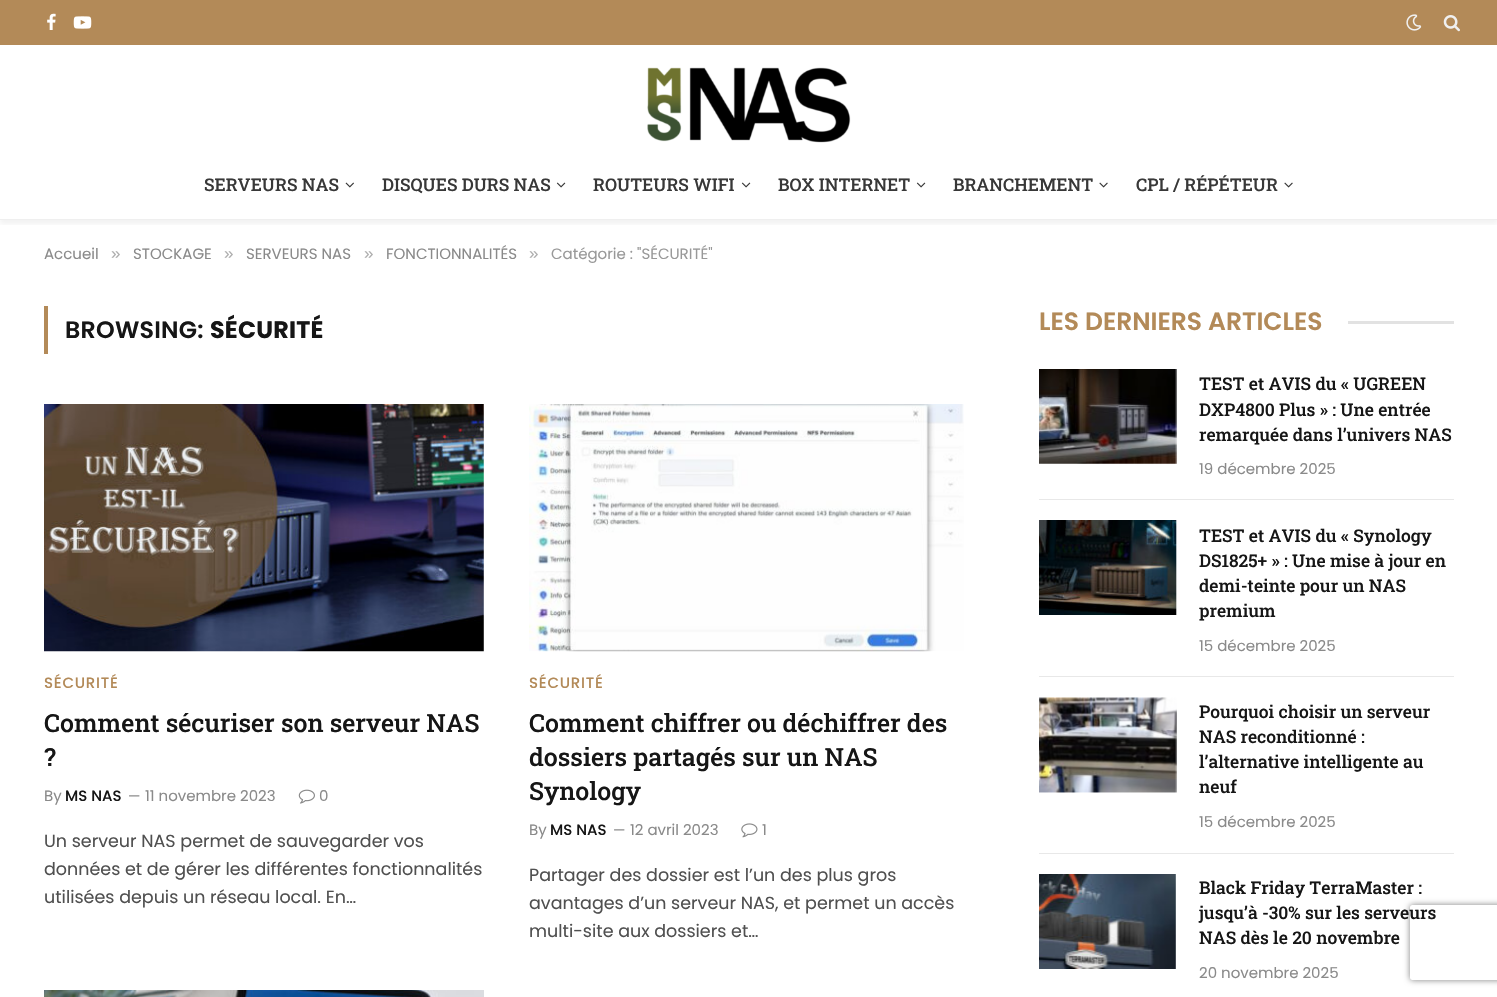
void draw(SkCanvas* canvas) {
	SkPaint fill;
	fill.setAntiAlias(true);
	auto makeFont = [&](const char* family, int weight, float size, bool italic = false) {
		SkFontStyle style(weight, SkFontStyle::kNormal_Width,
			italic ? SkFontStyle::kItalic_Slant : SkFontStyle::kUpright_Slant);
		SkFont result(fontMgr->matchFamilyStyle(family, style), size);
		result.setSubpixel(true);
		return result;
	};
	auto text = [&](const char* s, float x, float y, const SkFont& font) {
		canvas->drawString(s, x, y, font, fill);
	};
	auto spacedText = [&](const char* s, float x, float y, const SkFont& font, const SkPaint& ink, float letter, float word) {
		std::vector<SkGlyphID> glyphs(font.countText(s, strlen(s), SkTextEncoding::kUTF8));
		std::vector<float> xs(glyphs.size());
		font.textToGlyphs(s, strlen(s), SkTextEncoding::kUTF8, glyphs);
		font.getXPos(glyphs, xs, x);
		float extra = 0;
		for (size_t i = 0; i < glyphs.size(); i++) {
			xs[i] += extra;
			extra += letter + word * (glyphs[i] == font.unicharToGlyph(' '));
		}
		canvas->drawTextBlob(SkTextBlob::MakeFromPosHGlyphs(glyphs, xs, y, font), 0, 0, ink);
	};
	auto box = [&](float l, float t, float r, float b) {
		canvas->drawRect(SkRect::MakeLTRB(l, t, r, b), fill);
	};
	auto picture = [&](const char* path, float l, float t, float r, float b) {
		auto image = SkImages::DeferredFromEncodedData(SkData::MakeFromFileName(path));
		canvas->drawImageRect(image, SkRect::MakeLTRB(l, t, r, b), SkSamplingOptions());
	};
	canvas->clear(0xFFFFFFFF);
	canvas->save();
	canvas->clipRect(SkRect::MakeLTRB(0, 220, 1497, 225));
	fill.setColor(0x0D000000);
	fill.setMaskFilter(SkMaskFilter::MakeBlur(kNormal_SkBlurStyle, 2.5f));
	canvas->drawRect(SkRect::MakeLTRB(0, 4, 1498, 224), fill);
	fill.setMaskFilter(nullptr);
	canvas->restore();
	fill.setColor(0xFFB38A58);
	box(0, 0, 1497, 45);
	picture("image0.png", 47, 13, 56, 30);
	picture("image1.png", 73, 16, 92, 29);
	picture("image2.png", 1406, 14, 1422, 31);
	picture("image3.png", 1443, 15, 1460, 32);
	picture("image4.png", 647, 67, 851, 143);
	fill.setColor(0xFFEFEFEF);
	box(0, 219, 1497, 220);
	picture("image5.png", 345, 182, 354, 188);
	picture("image6.png", 556, 182, 566, 188);
	picture("image6.png", 741, 182, 751, 188);
	picture("image6.png", 916, 182, 926, 188);
	picture("image7.png", 1099, 182, 1108, 188);
	picture("image7.png", 1284, 182, 1293, 188);
	fill.setColor(0xFFB38A58);
	box(44, 306, 48, 354);
	picture("image8.png", 44, 404, 484, 652);
	picture("image9.png", 298, 789, 315, 804);
	picture("image10.png", 529, 404, 964, 652);
	picture("image11.png", 741, 823, 758, 838);
	picture("image12.png", 44, 990, 484, 997);
	fill.setColor(0xFFE2E2E2);
	box(1348, 321, 1454, 324);
	picture("image13.png", 1039, 369, 1177, 464);
	fill.setColor(0xFFE8E8E8);
	box(1039, 499, 1454, 500);
	picture("image14.png", 1039, 520, 1177, 615);
	box(1039, 676, 1454, 677);
	picture("image15.png", 1039, 697, 1177, 793);
	box(1039, 853, 1454, 854);
	picture("image16.png", 1039, 874, 1176, 969);
	canvas->save();
	canvas->clipPath(SkPathBuilder(SkPathFillType::kEvenOdd).moveTo(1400, 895).lineTo(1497, 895).lineTo(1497, 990).lineTo(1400, 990).close().moveTo(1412.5f, 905).lineTo(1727.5f, 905).cubicTo(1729, 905, 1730, 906, 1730, 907.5f).lineTo(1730, 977.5f).cubicTo(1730, 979, 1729, 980, 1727.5f, 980).lineTo(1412.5f, 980).cubicTo(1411, 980, 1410, 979, 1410, 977.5f).lineTo(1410, 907.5f).cubicTo(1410, 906, 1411, 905, 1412.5f, 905).close().detach(), true);
	fill.setColor(0xFF808080);
	fill.setMaskFilter(SkMaskFilter::MakeBlur(kNormal_SkBlurStyle, 3));
	canvas->drawRoundRect(SkRect::MakeLTRB(1410, 905, 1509, 980), 2.5f, 2.5f, fill);
	fill.setMaskFilter(nullptr);
	canvas->restore();
	auto font1 = makeFont("Roboto Slab", 500, 17.5f);
	fill.setColor(0xFF383838);
	text("SERVEURS NAS", 204, 191, font1);
	text("DISQUES DURS NAS", 382, 191, font1);
	text("ROUTEURS WIFI", 593, 191, font1);
	text("BOX INTERNET", 778, 191, font1);
	text("BRANCHEMENT", 953, 191, font1);
	text("CPL / RÉPÉTEUR", 1136, 191, font1);
	auto font2 = makeFont("Poppins", 400, 15);
	fill.setColor(0xFF8A8A8A);
	text("Accueil", 44, 259, font2);
	auto font3 = makeFont("Liberation Sans", 400, 17);
	fill.setColor(0xFFADADAD);
	text("»", 111, 259, font3);
	fill.setColor(0xFF8A8A8A);
	text("STOCKAGE", 133, 259, font2);
	fill.setColor(0xFFADADAD);
	text("»", 224, 259, font3);
	fill.setColor(0xFF8A8A8A);
	text("SERVEURS NAS", 246, 259, font2);
	fill.setColor(0xFFADADAD);
	text("»", 364, 259, font3);
	fill.setColor(0xFF8A8A8A);
	text("FONCTIONNALITÉS", 386, 259, font2);
	fill.setColor(0xFFADADAD);
	text("»", 529, 259, font3);
	fill.setColor(0xFF999999);
	text("Catégorie : \"SÉCURITÉ\"", 551, 259, font2);
	auto font4 = makeFont("Poppins", 600, 23.75f);
	fill.setColor(0xFF161616);
	spacedText("BROWSING:", 65, 338, font4, fill, 0.25f, 0);
	auto font5 = makeFont("Poppins", 700, 23.75f);
	spacedText("SÉCURITÉ", 210, 338, font5, fill, 0.25f, 0);
	auto font6 = makeFont("Poppins", 500, 15);
	fill.setColor(0xFFB38A58);
	spacedText("SÉCURITÉ", 44, 688, font6, fill, 0.75f, 0);
	auto font7 = makeFont("Roboto Slab", 500, 25);
	fill.setColor(0xFF161616);
	text("Comment sécuriser son serveur NAS", 44, 732, font7);
	text("?", 44, 766, font7);
	fill.setColor(0xFF8A8A8A);
	text("By", 44, 801, font2);
	fill.setColor(0xFF161616);
	text("MS NAS", 65, 801, font6);
	auto font8 = makeFont("Poppins", 400, 14);
	fill.setColor(0xFF8A8A8A);
	text("—", 128, 801, font8);
	text("11 novembre 2023", 145, 801, font2);
	text("0", 319, 801, font2);
	auto font9 = makeFont("Poppins", 400, 17.5f);
	fill.setColor(0xFF505050);
	text("Un serveur NAS permet de sauvegarder vos", 44, 847, font9);
	text("données et de gérer les différentes fonctionnalités", 44, 875, font9);
	text("utilisées depuis un réseau local. En…", 44, 903, font9);
	fill.setColor(0xFFB38A58);
	spacedText("SÉCURITÉ", 529, 688, font6, fill, 0.75f, 0);
	fill.setColor(0xFF161616);
	text("Comment chiffrer ou déchiffrer des", 529, 732, font7);
	text("dossiers partagés sur un NAS", 529, 766, font7);
	text("Synology", 529, 800, font7);
	fill.setColor(0xFF8A8A8A);
	text("By", 529, 835, font2);
	fill.setColor(0xFF161616);
	text("MS NAS", 550, 835, font6);
	fill.setColor(0xFF8A8A8A);
	text("—", 613, 835, font8);
	text("12 avril 2023", 630, 835, font2);
	text("1", 762, 835, font2);
	fill.setColor(0xFF505050);
	text("Partager des dossier est l’un des plus gros", 529, 881, font9);
	text("avantages d’un serveur NAS, et permet un accès", 529, 909, font9);
	text("multi-site aux dossiers et…", 529, 937, font9);
	auto font10 = makeFont("Poppins", 600, 25);
	fill.setColor(0xFFB38A58);
	text("LES DERNIERS ARTICLES", 1039, 330, font10);
	fill.setColor(0xFF161616);
	text("TEST et AVIS du « UGREEN", 1199, 390, font1);
	text("DXP4800 Plus » : Une entrée", 1199, 416, font1);
	text("remarquée dans l’univers NAS", 1199, 441, font1);
	fill.setColor(0xFF8A8A8A);
	text("19 décembre 2025", 1199, 474, font2);
	fill.setColor(0xFF161616);
	text("TEST et AVIS du « Synology", 1199, 542, font1);
	text("DS1825+ » : Une mise à jour en", 1199, 567, font1);
	text("demi-teinte pour un NAS", 1199, 592, font1);
	text("premium", 1199, 617, font1);
	fill.setColor(0xFF8A8A8A);
	text("15 décembre 2025", 1199, 651, font2);
	fill.setColor(0xFF161616);
	text("Pourquoi choisir un serveur", 1199, 718, font1);
	text("NAS reconditionné :", 1199, 743, font1);
	text("l’alternative intelligente au", 1199, 768, font1);
	text("neuf", 1199, 793, font1);
	fill.setColor(0xFF8A8A8A);
	text("15 décembre 2025", 1199, 827, font2);
	fill.setColor(0xFF161616);
	text("Black Friday TerraMaster :", 1199, 894, font1);
	text("jusqu’à -30% sur les serveurs", 1199, 919, font1);
	text("NAS dès le 20 novembre", 1199, 944, font1);
	fill.setColor(0xFF8A8A8A);
	text("20 novembre 2025", 1199, 978, font2);
}
